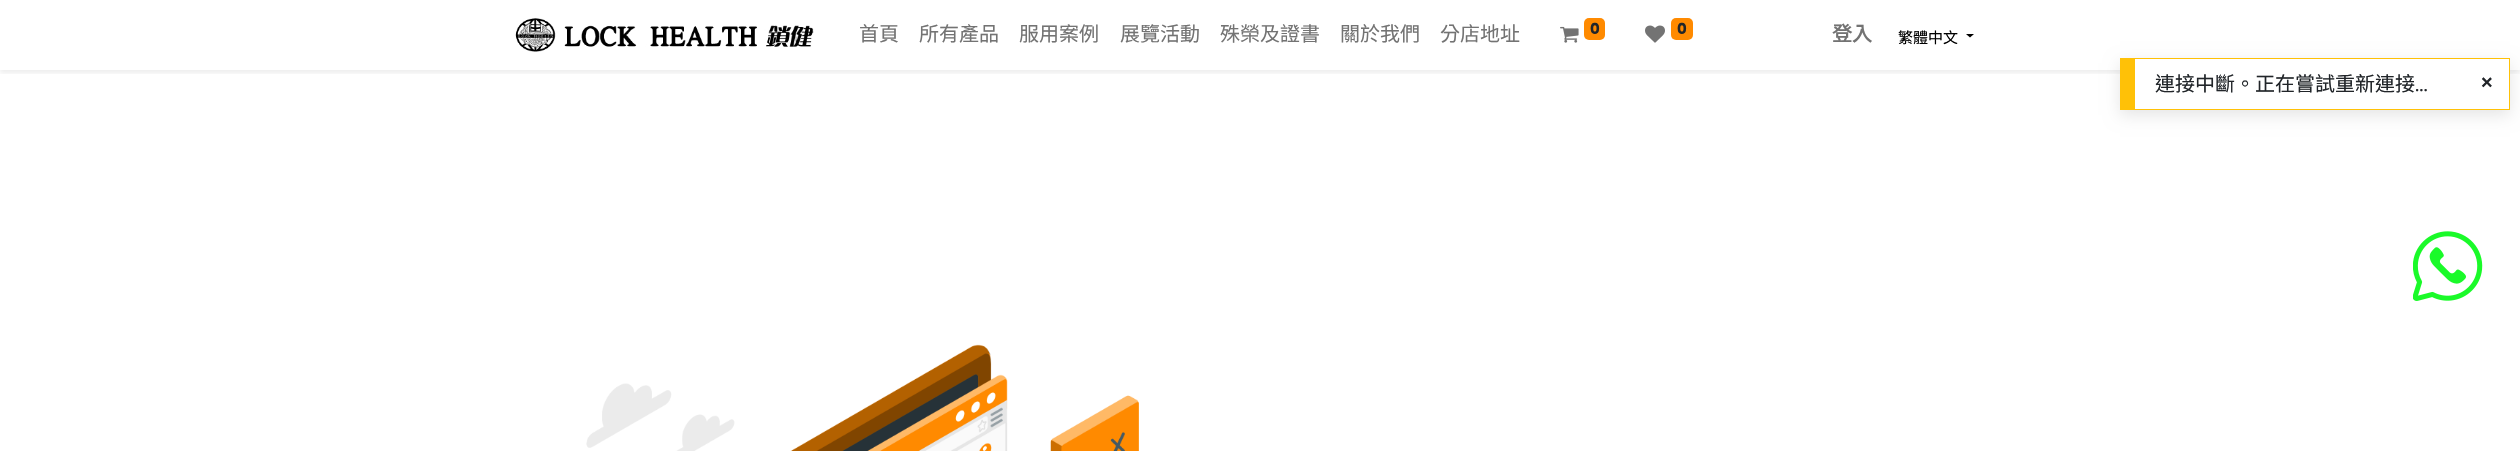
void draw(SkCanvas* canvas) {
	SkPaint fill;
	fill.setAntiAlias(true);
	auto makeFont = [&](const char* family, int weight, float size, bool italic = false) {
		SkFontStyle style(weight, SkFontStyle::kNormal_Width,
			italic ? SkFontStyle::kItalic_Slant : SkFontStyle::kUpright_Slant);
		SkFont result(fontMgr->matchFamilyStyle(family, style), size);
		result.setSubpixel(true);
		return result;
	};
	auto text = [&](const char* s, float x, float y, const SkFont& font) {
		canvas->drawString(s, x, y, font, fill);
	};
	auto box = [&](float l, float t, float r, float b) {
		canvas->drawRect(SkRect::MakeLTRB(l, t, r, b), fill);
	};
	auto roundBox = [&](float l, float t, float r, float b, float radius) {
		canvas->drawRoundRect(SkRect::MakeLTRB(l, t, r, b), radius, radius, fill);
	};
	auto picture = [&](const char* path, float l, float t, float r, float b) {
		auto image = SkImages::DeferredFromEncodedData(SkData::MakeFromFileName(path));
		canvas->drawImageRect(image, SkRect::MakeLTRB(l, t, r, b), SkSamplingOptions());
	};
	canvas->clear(0xFFFFFFFF);
	canvas->save();
	canvas->clipRect(SkRect::MakeLTRB(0, 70, 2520, 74));
	fill.setColor(0x12000000);
	fill.setMaskFilter(SkMaskFilter::MakeBlur(kNormal_SkBlurStyle, 2.5f));
	canvas->drawRect(SkRect::MakeLTRB(0, 3, 2520, 73), fill);
	fill.setMaskFilter(nullptr);
	canvas->restore();
	picture("image0.png", 515, 18, 814, 52);
	picture("image1.png", 1560, 26, 1579, 43);
	fill.setColor(0xFFFF8A00);
	roundBox(1584, 18, 1605, 40, 5);
	picture("image2.png", 1645, 25, 1665, 43);
	roundBox(1671, 18, 1693, 40, 5);
	fill.setColor(0xFF000000);
	canvas->drawPath(SkPathBuilder().moveTo(1966, 34).lineTo(1974, 34).lineTo(1970, 37.5f).close().detach(), fill);
	picture("image3.png", 2413, 231, 2483, 301);
	picture("image4.png", 586, 344, 1139, 451);
	fill.setColor(0x1A000000);
	fill.setMaskFilter(SkMaskFilter::MakeBlur(kNormal_SkBlurStyle, 7.5f));
	canvas->drawRect(SkRect::MakeLTRB(2120, 63, 2510, 115), fill);
	fill.setMaskFilter(nullptr);
	fill.setColor(0xFFFFFFFF);
	box(2135, 59, 2509, 109);
	fill.setColor(0xFFFFC107);
	box(2135, 58, 2510, 59);
	box(2509, 58, 2510, 110);
	box(2135, 109, 2510, 110);
	box(2120, 58, 2135, 110);
	auto font1 = makeFont("Noto Sans CJK TC", 400, 20);
	fill.setColor(0xFF737373);
	text("首頁", 859, 41, font1);
	text("所有產品", 919, 41, font1);
	text("服用案例", 1019, 41, font1);
	text("展覽活動", 1120, 41, font1);
	text("殊榮及證書", 1220, 41, font1);
	text("關於我們", 1340, 41, font1);
	text("分店地址", 1440, 41, font1);
	auto font2 = makeFont("Poppins", 700, 15);
	fill.setColor(0xFF212529);
	text("0", 1590, 34, font2);
	text("0", 1677, 34, font2);
	auto font3 = makeFont("Noto Sans CJK TC", 700, 20);
	fill.setColor(0xFF737373);
	text("登入", 1832, 41, font3);
	auto font4 = makeFont("Noto Sans CJK TC", 400, 15);
	fill.setColor(0xFF000000);
	text("繁體中文", 1898, 43, font4);
	fill.setColor(0xFF212529);
	text("連接中斷。正在嘗試重新連接", 2155, 91, font1);
	auto font5 = makeFont("PT Sans", 400, 20);
	text("...", 2415, 91, font5);
	auto font6 = makeFont("Liberation Sans", 700, 20);
	text("×", 2481, 89, font6);
}
